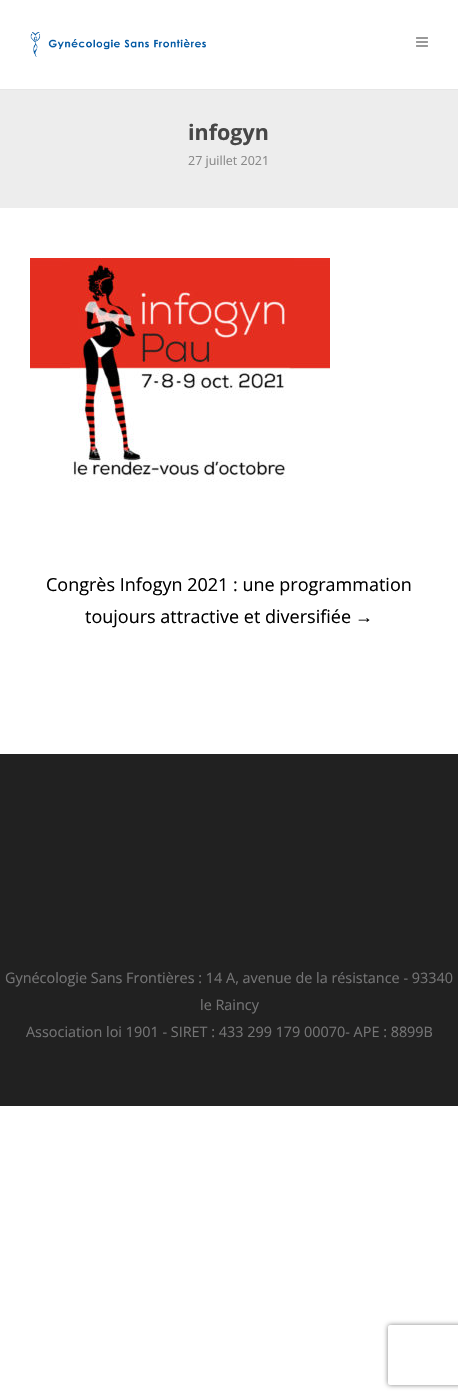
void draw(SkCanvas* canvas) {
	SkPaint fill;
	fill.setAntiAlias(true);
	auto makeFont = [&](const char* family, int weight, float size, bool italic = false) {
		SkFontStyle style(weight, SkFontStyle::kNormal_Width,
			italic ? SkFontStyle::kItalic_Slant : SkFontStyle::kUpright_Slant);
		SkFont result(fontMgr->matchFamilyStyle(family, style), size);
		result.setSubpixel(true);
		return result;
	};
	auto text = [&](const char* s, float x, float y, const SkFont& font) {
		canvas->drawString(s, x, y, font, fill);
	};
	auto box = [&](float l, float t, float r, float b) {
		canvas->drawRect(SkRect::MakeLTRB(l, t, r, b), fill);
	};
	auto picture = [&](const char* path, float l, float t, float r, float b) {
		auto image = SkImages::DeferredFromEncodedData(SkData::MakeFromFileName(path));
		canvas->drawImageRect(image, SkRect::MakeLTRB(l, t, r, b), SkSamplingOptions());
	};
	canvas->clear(0xFFFFFFFF);
	fill.setColor(0xFFE6E6E6);
	box(0, 89, 458, 90);
	picture("image0.png", 30, 32, 206, 57);
	picture("image1.png", 416, 37, 428, 47);
	fill.setColor(0xFFEDEDED);
	box(0, 90, 458, 208);
	picture("image2.png", 30, 258, 330, 482);
	fill.setColor(0xFF212121);
	box(0, 754, 458, 1106);
	canvas->save();
	canvas->clipPath(SkPathBuilder(SkPathFillType::kEvenOdd).moveTo(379, 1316).lineTo(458, 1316).lineTo(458, 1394).lineTo(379, 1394).close().moveTo(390, 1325).lineTo(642, 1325).cubicTo(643, 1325, 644, 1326, 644, 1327).lineTo(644, 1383).cubicTo(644, 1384, 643, 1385, 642, 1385).lineTo(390, 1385).cubicTo(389, 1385, 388, 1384, 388, 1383).lineTo(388, 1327).cubicTo(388, 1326, 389, 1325, 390, 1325).close().detach(), true);
	fill.setColor(0xFF808080);
	fill.setMaskFilter(SkMaskFilter::MakeBlur(kNormal_SkBlurStyle, 2.5f));
	canvas->drawRoundRect(SkRect::MakeLTRB(388, 1325, 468, 1385), 2, 2, fill);
	fill.setMaskFilter(nullptr);
	canvas->restore();
	auto font1 = makeFont("Open Sans", 700, 21.5f);
	fill.setColor(0xFF474747);
	text("infogyn", 188, 140, font1);
	auto font2 = makeFont("Open Sans", 400, 12.5f);
	fill.setColor(0xFF898989);
	text("27 juillet 2021", 188, 165, font2);
	auto font3 = makeFont("Open Sans", 400, 18);
	fill.setColor(0xFF000000);
	text("Congrès Infogyn 2021 : une programmation", 46, 591, font3);
	text("toujours attractive et diversifiée", 85, 623, font3);
	auto font4 = makeFont("Liberation Sans", 400, 18);
	text("→", 355, 623, font4);
	auto font5 = makeFont("Open Sans", 400, 14.4f);
	fill.setColor(0xFF747475);
	text("Gynécologie Sans Frontières : 14 A, avenue de la résistance - 93340", 5, 983, font5);
	text("le Raincy", 200, 1010, font5);
	text("Association loi 1901 - SIRET : 433 299 179 00070- APE : 8899B", 26, 1037, font5);
}
